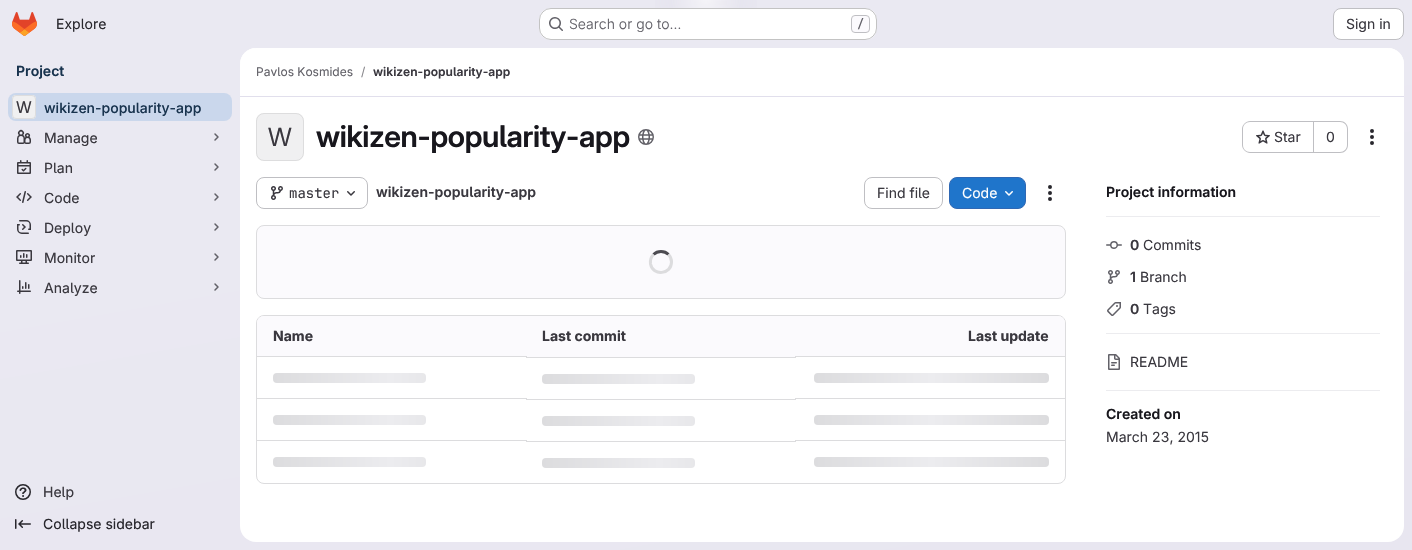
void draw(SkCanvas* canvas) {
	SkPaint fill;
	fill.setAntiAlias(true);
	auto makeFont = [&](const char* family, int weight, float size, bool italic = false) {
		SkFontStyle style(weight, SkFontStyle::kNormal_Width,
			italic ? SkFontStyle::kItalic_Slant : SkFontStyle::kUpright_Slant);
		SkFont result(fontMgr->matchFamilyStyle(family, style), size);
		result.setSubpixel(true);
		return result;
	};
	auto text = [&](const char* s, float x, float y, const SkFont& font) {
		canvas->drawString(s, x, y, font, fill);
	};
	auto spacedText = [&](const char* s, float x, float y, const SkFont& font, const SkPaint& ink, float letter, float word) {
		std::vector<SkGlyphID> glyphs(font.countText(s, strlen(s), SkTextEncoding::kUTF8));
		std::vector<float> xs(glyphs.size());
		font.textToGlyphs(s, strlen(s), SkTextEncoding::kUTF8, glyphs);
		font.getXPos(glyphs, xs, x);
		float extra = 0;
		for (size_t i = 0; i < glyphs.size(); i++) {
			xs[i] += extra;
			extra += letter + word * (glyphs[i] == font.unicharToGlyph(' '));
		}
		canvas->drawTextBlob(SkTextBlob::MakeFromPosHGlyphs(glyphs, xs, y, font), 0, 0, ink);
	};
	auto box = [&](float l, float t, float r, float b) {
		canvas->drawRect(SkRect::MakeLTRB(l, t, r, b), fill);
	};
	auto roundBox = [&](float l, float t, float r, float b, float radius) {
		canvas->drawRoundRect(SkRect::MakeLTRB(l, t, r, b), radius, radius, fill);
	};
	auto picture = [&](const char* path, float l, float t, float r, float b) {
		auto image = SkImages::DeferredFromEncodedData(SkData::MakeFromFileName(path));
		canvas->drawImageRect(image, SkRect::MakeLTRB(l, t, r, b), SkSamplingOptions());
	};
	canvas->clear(0xFFFFFFFF);
	{
		const SkColor colors[] = {0xFFE8E6F0, 0xFFEAE9F2};
		const float stops[] = {0, 0.7f};
		const SkPoint ends[] = {{774, 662}, {638, -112}};
		fill.setShader(SkGradientShader::MakeLinear(ends, colors, stops, 2, SkTileMode::kClamp));
		fill.setAlpha(255);
	}
	box(0, 0, 1412, 550);
	{
		const SkColor colors[] = {0xFFE4E2ED, 0x00E4E2ED};
		const float stops[] = {0, 0.1f};
		SkMatrix m = SkMatrix::Translate(706, 0).preScale(706, 550);
		fill.setShader(SkGradientShader::MakeRadial({0, 0}, 1, colors, stops, 2, SkTileMode::kClamp, 0, &m));
		fill.setAlpha(255);
	}
	box(655, 0, 757, 40);
	{
		const SkColor colors[] = {0xFFE4E2EC, 0x00E4E2EC};
		const float stops[] = {0, 0.07f};
		SkMatrix m = SkMatrix::Translate(706, 0).preScale(706, 550);
		fill.setShader(SkGradientShader::MakeRadial({0, 0}, 1, colors, stops, 2, SkTileMode::kClamp, 0, &m));
		fill.setAlpha(255);
	}
	box(694, 1, 727, 5);
	{
		const SkColor colors[] = {0x99FFFFFF, 0x00FFFFFF};
		const float stops[] = {0, 0.04f};
		fill.setShader(SkGradientShader::MakeRadial({706, 0}, 895, colors, stops, 2, SkTileMode::kClamp));
		fill.setAlpha(255);
	}
	box(671, 0, 741, 8);
	picture("image0.png", 12, 12, 37, 36);
	fill.setShader(nullptr);
	fill.setColor(0xFFFFFFFF);
	roundBox(539, 8, 877, 40, 12);
	fill.setStyle(SkPaint::kStroke_Style);
	fill.setStrokeWidth(1);
	fill.setColor(0x3D050506);
	canvas->drawRoundRect(SkRect::MakeLTRB(539.5f, 8.5f, 876.5f, 39.5f), 11.5f, 11.5f, fill);
	picture("image1.png", 549, 17, 563, 31);
	fill.setStyle(SkPaint::kFill_Style);
	fill.setColor(0xFFFBFAFD);
	canvas->drawRoundRect(SkRect::MakeLTRB(851.5f, 15.5f, 869.5f, 32.5f), 3.5f, 3.5f, fill);
	fill.setStyle(SkPaint::kStroke_Style);
	fill.setColor(0xFFBFBFC3);
	canvas->drawRoundRect(SkRect::MakeLTRB(851.5f, 15.5f, 869.5f, 32.5f), 3.5f, 3.5f, fill);
	fill.setStyle(SkPaint::kFill_Style);
	fill.setColor(0xFFFFFFFF);
	canvas->drawRoundRect(SkRect::MakeLTRB(1333.5f, 8.5f, 1403.5f, 39.5f), 7.5f, 7.5f, fill);
	fill.setStyle(SkPaint::kStroke_Style);
	fill.setColor(0xFFBFBFC3);
	canvas->drawRoundRect(SkRect::MakeLTRB(1333.5f, 8.5f, 1403.5f, 39.5f), 7.5f, 7.5f, fill);
	fill.setStyle(SkPaint::kFill_Style);
	fill.setColor(0xFFCAD7EC);
	roundBox(8, 93, 232, 121, 8);
	fill.setColor(0xFFFFFFFF);
	roundBox(12, 95, 36, 119, 4);
	fill.setColor(0x3DBFBFC3);
	roundBox(12, 95, 36, 119, 4);
	fill.setStyle(SkPaint::kStroke_Style);
	fill.setColor(0x14050506);
	canvas->drawRoundRect(SkRect::MakeLTRB(12.5f, 95.5f, 35.5f, 118.5f), 3.5f, 3.5f, fill);
	picture("image2.png", 17, 129, 31, 144);
	fill.setStrokeWidth(1.5f);
	fill.setStrokeCap(SkPaint::kRound_Cap);
	fill.setStrokeJoin(SkPaint::kRound_Join);
	fill.setColor(0xFF626168);
	canvas->drawPath(SkPathBuilder().moveTo(215, 134).lineTo(218, 137).lineTo(215, 140).detach(), fill);
	picture("image3.png", 17, 160, 31, 174);
	canvas->drawPath(SkPathBuilder().moveTo(215, 164).lineTo(218, 167).lineTo(215, 170).detach(), fill);
	picture("image4.png", 16, 191, 32, 203);
	canvas->drawPath(SkPathBuilder().moveTo(215, 194).lineTo(218, 197).lineTo(215, 200).detach(), fill);
	picture("image5.png", 17, 220, 31, 234);
	canvas->drawPath(SkPathBuilder().moveTo(215, 224).lineTo(218, 227).lineTo(215, 230).detach(), fill);
	picture("image6.png", 16, 250, 32, 264);
	canvas->drawPath(SkPathBuilder().moveTo(215, 254).lineTo(218, 257).lineTo(215, 260).detach(), fill);
	picture("image7.png", 17, 280, 31, 294);
	canvas->drawPath(SkPathBuilder().moveTo(215, 284).lineTo(218, 287).lineTo(215, 290).detach(), fill);
	picture("image8.png", 15, 484, 31, 500);
	picture("image9.png", 15, 519, 31, 529);
	fill.setStyle(SkPaint::kFill_Style);
	fill.setColor(0xFFFFFFFF);
	roundBox(240, 48, 1404, 542, 16);
	canvas->drawPath(SkPathBuilder().moveTo(256, 48).lineTo(1388, 48).cubicTo(1397, 48, 1404, 55, 1404, 64).lineTo(1404, 97).lineTo(240, 97).lineTo(240, 64).cubicTo(240, 55, 247, 48, 256, 48).close().detach(), fill);
	fill.setColor(0xFFE1DFEC);
	box(240, 96, 1404, 97);
	fill.setColor(0xFFF0F0F1);
	roundBox(256, 113, 304, 161, 8);
	fill.setStyle(SkPaint::kStroke_Style);
	fill.setStrokeWidth(1);
	fill.setStrokeCap(SkPaint::kButt_Cap);
	fill.setStrokeJoin(SkPaint::kMiter_Join);
	fill.setColor(0x14050506);
	canvas->drawRoundRect(SkRect::MakeLTRB(256.5f, 113.5f, 303.5f, 160.5f), 7.5f, 7.5f, fill);
	picture("image10.png", 638, 129, 654, 145);
	fill.setStyle(SkPaint::kFill_Style);
	fill.setColor(0xFFBFBFC3);
	canvas->drawPath(SkPathBuilder(SkPathFillType::kEvenOdd).moveTo(1250, 121).lineTo(1313, 121).lineTo(1313, 153).lineTo(1250, 153).cubicTo(1246, 153, 1242, 149, 1242, 145).lineTo(1242, 129).cubicTo(1242, 125, 1246, 121, 1250, 121).close().moveTo(1250, 122).lineTo(1313, 122).lineTo(1313, 152).lineTo(1250, 152).cubicTo(1246, 152, 1243, 149, 1243, 145).lineTo(1243, 129).cubicTo(1243, 125, 1246, 122, 1250, 122).close().detach(), fill);
	picture("image11.png", 1256, 130, 1270, 144);
	canvas->drawPath(SkPathBuilder(SkPathFillType::kEvenOdd).moveTo(1314, 121).lineTo(1340, 121).cubicTo(1344.5f, 121, 1348, 124.5f, 1348, 129).lineTo(1348, 145).cubicTo(1348, 149.5f, 1344.5f, 153, 1340, 153).lineTo(1314, 153).close().moveTo(1314, 122).lineTo(1340, 122).cubicTo(1344, 122, 1347, 125, 1347, 129).lineTo(1347, 145).cubicTo(1347, 149, 1344, 152, 1340, 152).lineTo(1314, 152).close().detach(), fill);
	box(1313, 121, 1314, 153);
	picture("image12.png", 1370, 129, 1374, 145);
	fill.setStyle(SkPaint::kStroke_Style);
	canvas->drawRoundRect(SkRect::MakeLTRB(256.5f, 177.5f, 367.5f, 208.5f), 7.5f, 7.5f, fill);
	picture("image13.png", 271, 186, 283, 200);
	picture("image14.png", 347, 191, 355, 196);
	canvas->drawRoundRect(SkRect::MakeLTRB(864.5f, 177.5f, 942.5f, 208.5f), 7.5f, 7.5f, fill);
	fill.setStyle(SkPaint::kFill_Style);
	fill.setColor(0xFF1F75CB);
	canvas->drawRoundRect(SkRect::MakeLTRB(949.5f, 177.5f, 1025.5f, 208.5f), 7.5f, 7.5f, fill);
	fill.setStyle(SkPaint::kStroke_Style);
	fill.setColor(0xFF2F68B4);
	canvas->drawRoundRect(SkRect::MakeLTRB(949.5f, 177.5f, 1025.5f, 208.5f), 7.5f, 7.5f, fill);
	picture("image15.png", 1005, 191, 1013, 196);
	picture("image12.png", 1048, 185, 1052, 201);
	fill.setStyle(SkPaint::kFill_Style);
	fill.setColor(0xFFFBFAFD);
	canvas->drawRoundRect(SkRect::MakeLTRB(256.5f, 225.5f, 1065.5f, 298.5f), 7.5f, 7.5f, fill);
	fill.setStyle(SkPaint::kStroke_Style);
	fill.setColor(0xFFDCDCDE);
	canvas->drawRoundRect(SkRect::MakeLTRB(256.5f, 225.5f, 1065.5f, 298.5f), 7.5f, 7.5f, fill);
	fill.setStrokeWidth(3);
	fill.setColor(0xFF4C4B51);
	canvas->drawPath(SkPathBuilder().moveTo(653.5f, 254.5f).cubicTo(657.5f, 250.5f, 664.5f, 250.5f, 668.5f, 254.5f).detach(), fill);
	fill.setColor(0xFFDCDCDE);
	canvas->drawPath(SkPathBuilder().moveTo(668.5f, 254.5f).cubicTo(670.5f, 256.5f, 671.5f, 259, 671.5f, 262).cubicTo(671.5f, 274.5f, 653, 276.5f, 650.5f, 264).cubicTo(650, 260.5f, 651, 257, 653.5f, 254.5f).detach(), fill);
	fill.setStrokeWidth(1);
	canvas->drawRoundRect(SkRect::MakeLTRB(256.5f, 315.5f, 1065.5f, 483.5f), 7.5f, 7.5f, fill);
	fill.setStyle(SkPaint::kFill_Style);
	fill.setColor(0xFFFBFAFD);
	canvas->drawPath(SkPathBuilder().moveTo(264, 316).lineTo(526, 316).lineTo(526, 357).lineTo(257, 357).lineTo(257, 323).cubicTo(257, 319, 260, 316, 264, 316).close().detach(), fill);
	box(526, 316, 796, 357);
	canvas->drawPath(SkPathBuilder().moveTo(796, 316).lineTo(1058, 316).cubicTo(1062, 316, 1065, 319, 1065, 323).lineTo(1065, 357).lineTo(796, 357).close().detach(), fill);
	fill.setColor(0xFFDCDCDE);
	box(257, 356, 527, 357);
	{
		const SkColor colors[] = {0xFFDCDCDE, 0xFFECECEF, 0xFFDCDCDE};
		const float stops[] = {0, 0.5f, 1};
		const SkPoint ends[] = {{273, 373}, {508, 373}};
		fill.setShader(SkGradientShader::MakeLinear(ends, colors, stops, 3, SkTileMode::kClamp));
		fill.setAlpha(255);
	}
	roundBox(273, 373, 426, 383, 4);
	fill.setShader(nullptr);
	fill.setColor(0xFFDCDCDE);
	box(526, 357, 796, 358);
	{
		const SkColor colors[] = {0xFFDCDCDE, 0xFFECECEF, 0xFFDCDCDE};
		const float stops[] = {0, 0.5f, 1};
		const SkPoint ends[] = {{542, 374}, {777, 374}};
		fill.setShader(SkGradientShader::MakeLinear(ends, colors, stops, 3, SkTileMode::kClamp));
		fill.setAlpha(255);
	}
	roundBox(542, 374, 695, 384, 4);
	fill.setShader(nullptr);
	fill.setColor(0xFFDCDCDE);
	box(795, 356, 1065, 357);
	{
		const SkColor colors[] = {0xFFDCDCDE, 0xFFECECEF, 0xFFDCDCDE};
		const float stops[] = {0, 0.5f, 1};
		const SkPoint ends[] = {{814, 373}, {1049, 373}};
		fill.setShader(SkGradientShader::MakeLinear(ends, colors, stops, 3, SkTileMode::kClamp));
		fill.setAlpha(255);
	}
	roundBox(814, 373, 1049, 383, 4);
	fill.setShader(nullptr);
	fill.setColor(0xFFDCDCDE);
	box(257, 398, 527, 399);
	{
		const SkColor colors[] = {0xFFDCDCDE, 0xFFECECEF, 0xFFDCDCDE};
		const float stops[] = {0, 0.5f, 1};
		const SkPoint ends[] = {{273, 415}, {508, 415}};
		fill.setShader(SkGradientShader::MakeLinear(ends, colors, stops, 3, SkTileMode::kClamp));
		fill.setAlpha(255);
	}
	roundBox(273, 415, 426, 425, 4);
	fill.setShader(nullptr);
	fill.setColor(0xFFDCDCDE);
	box(526, 399, 796, 400);
	{
		const SkColor colors[] = {0xFFDCDCDE, 0xFFECECEF, 0xFFDCDCDE};
		const float stops[] = {0, 0.5f, 1};
		const SkPoint ends[] = {{542, 416}, {777, 416}};
		fill.setShader(SkGradientShader::MakeLinear(ends, colors, stops, 3, SkTileMode::kClamp));
		fill.setAlpha(255);
	}
	roundBox(542, 416, 695, 426, 4);
	fill.setShader(nullptr);
	fill.setColor(0xFFDCDCDE);
	box(795, 398, 1065, 399);
	{
		const SkColor colors[] = {0xFFDCDCDE, 0xFFECECEF, 0xFFDCDCDE};
		const float stops[] = {0, 0.5f, 1};
		const SkPoint ends[] = {{814, 415}, {1049, 415}};
		fill.setShader(SkGradientShader::MakeLinear(ends, colors, stops, 3, SkTileMode::kClamp));
		fill.setAlpha(255);
	}
	roundBox(814, 415, 1049, 425, 4);
	fill.setShader(nullptr);
	fill.setColor(0xFFDCDCDE);
	box(257, 440, 527, 441);
	{
		const SkColor colors[] = {0xFFDCDCDE, 0xFFECECEF, 0xFFDCDCDE};
		const float stops[] = {0, 0.5f, 1};
		const SkPoint ends[] = {{273, 457}, {508, 457}};
		fill.setShader(SkGradientShader::MakeLinear(ends, colors, stops, 3, SkTileMode::kClamp));
		fill.setAlpha(255);
	}
	roundBox(273, 457, 426, 467, 4);
	fill.setShader(nullptr);
	fill.setColor(0xFFDCDCDE);
	box(526, 441, 796, 442);
	{
		const SkColor colors[] = {0xFFDCDCDE, 0xFFECECEF, 0xFFDCDCDE};
		const float stops[] = {0, 0.5f, 1};
		const SkPoint ends[] = {{542, 458}, {777, 458}};
		fill.setShader(SkGradientShader::MakeLinear(ends, colors, stops, 3, SkTileMode::kClamp));
		fill.setAlpha(255);
	}
	roundBox(542, 458, 695, 468, 4);
	fill.setShader(nullptr);
	fill.setColor(0xFFDCDCDE);
	box(795, 440, 1065, 441);
	{
		const SkColor colors[] = {0xFFDCDCDE, 0xFFECECEF, 0xFFDCDCDE};
		const float stops[] = {0, 0.5f, 1};
		const SkPoint ends[] = {{814, 457}, {1049, 457}};
		fill.setShader(SkGradientShader::MakeLinear(ends, colors, stops, 3, SkTileMode::kClamp));
		fill.setAlpha(255);
	}
	roundBox(814, 457, 1049, 467, 4);
	fill.setShader(nullptr);
	fill.setColor(0xFFECECEF);
	box(1106, 216, 1380, 217);
	box(1106, 333, 1380, 334);
	picture("image16.png", 1106, 241, 1122, 249);
	picture("image17.png", 1108, 270, 1120, 284);
	picture("image18.png", 1107, 302, 1121, 316);
	box(1106, 390, 1380, 391);
	picture("image19.png", 1108, 354, 1120, 370);
	auto font1 = makeFont("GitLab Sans", 400, 14);
	fill.setColor(0xFF28272D);
	text("Explore", 56, 29, font1);
	auto font2 = makeFont("GitLab Sans", 300, 14);
	fill.setColor(0xFF626168);
	text("Search or go to…", 569, 29, font2);
	auto font3 = makeFont("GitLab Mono", 500, 12);
	text("/", 857, 28, font3);
	fill.setColor(0xFF3A383F);
	text("Sign in", 1346, 29, font1);
	auto font4 = makeFont("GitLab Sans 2", 600, 14);
	fill.setColor(0xFF18334E);
	text("Project", 16, 76, font4);
	auto font5 = makeFont("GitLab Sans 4", 400, 16);
	fill.setColor(0xFF3A383F);
	text("W", 16, 113, font5);
	auto font6 = makeFont("GitLab Sans", 500, 14);
	fill.setColor(0xFF18334E);
	text("wikizen-popularity-app", 44, 113, font6);
	auto font7 = makeFont("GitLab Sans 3", 400, 14);
	fill.setColor(0xFF3A383F);
	text("Manage", 44, 143, font7);
	text("Plan", 44, 173, font7);
	text("Code", 44, 203, font7);
	text("Deploy", 44, 233, font7);
	text("Monitor", 44, 263, font7);
	text("Analyze", 44, 293, font7);
	text("Help", 43, 497, font7);
	fill.setColor(0xFF28272D);
	text("Collapse sidebar", 43, 529, font7);
	auto font8 = makeFont("GitLab Sans", 400, 12);
	fill.setColor(0xFF626168);
	text("Pavlos Kosmides", 256, 76, font8);
	fill.setColor(0xFF89888D);
	text("/", 361, 76, font8);
	auto font9 = makeFont("GitLab Sans 2", 600, 12);
	fill.setColor(0xFF3A383F);
	text("wikizen-popularity-app", 373, 76, font9);
	auto font10 = makeFont("GitLab Sans 2", 400, 25);
	text("W", 268, 146, font10);
	auto font11 = makeFont("GitLab Sans", 600, 30);
	fill.setColor(0xFF18171D);
	spacedText("wikizen-popularity-app", 316, 147, font11, fill, -0.3f, 0);
	fill.setColor(0xFF3A383F);
	text("Star", 1274, 142, font1);
	text("0", 1326, 142, font1);
	auto font12 = makeFont("GitLab Mono", 400, 14);
	text("master", 289, 198, font12);
	text("wikizen-popularity-app", 376, 197, font4);
	text("Find file", 877, 198, font1);
	fill.setColor(0xFFFFFFFF);
	text("Code", 962, 198, font1);
	auto font13 = makeFont("GitLab Sans", 700, 14);
	fill.setColor(0xFF3A383F);
	text("Name", 273, 341, font13);
	text("Last commit", 542, 341, font13);
	text("Last update", 968, 341, font13);
	fill.setColor(0xFF18171D);
	text("Project information", 1106, 197, font4);
	fill.setColor(0xFF3A383F);
	text("0", 1130, 250, font4);
	text("Commits", 1143, 250, font1);
	text("1", 1130, 282, font4);
	text("Branch", 1140, 282, font1);
	text("0", 1130, 314, font4);
	text("Tags", 1143, 314, font1);
	text("README", 1130, 367, font1);
	fill.setColor(0xFF18171D);
	text("Created on", 1106, 419, font4);
	fill.setColor(0xFF3A383F);
	text("March 23, 2015", 1106, 442, font1);
}
